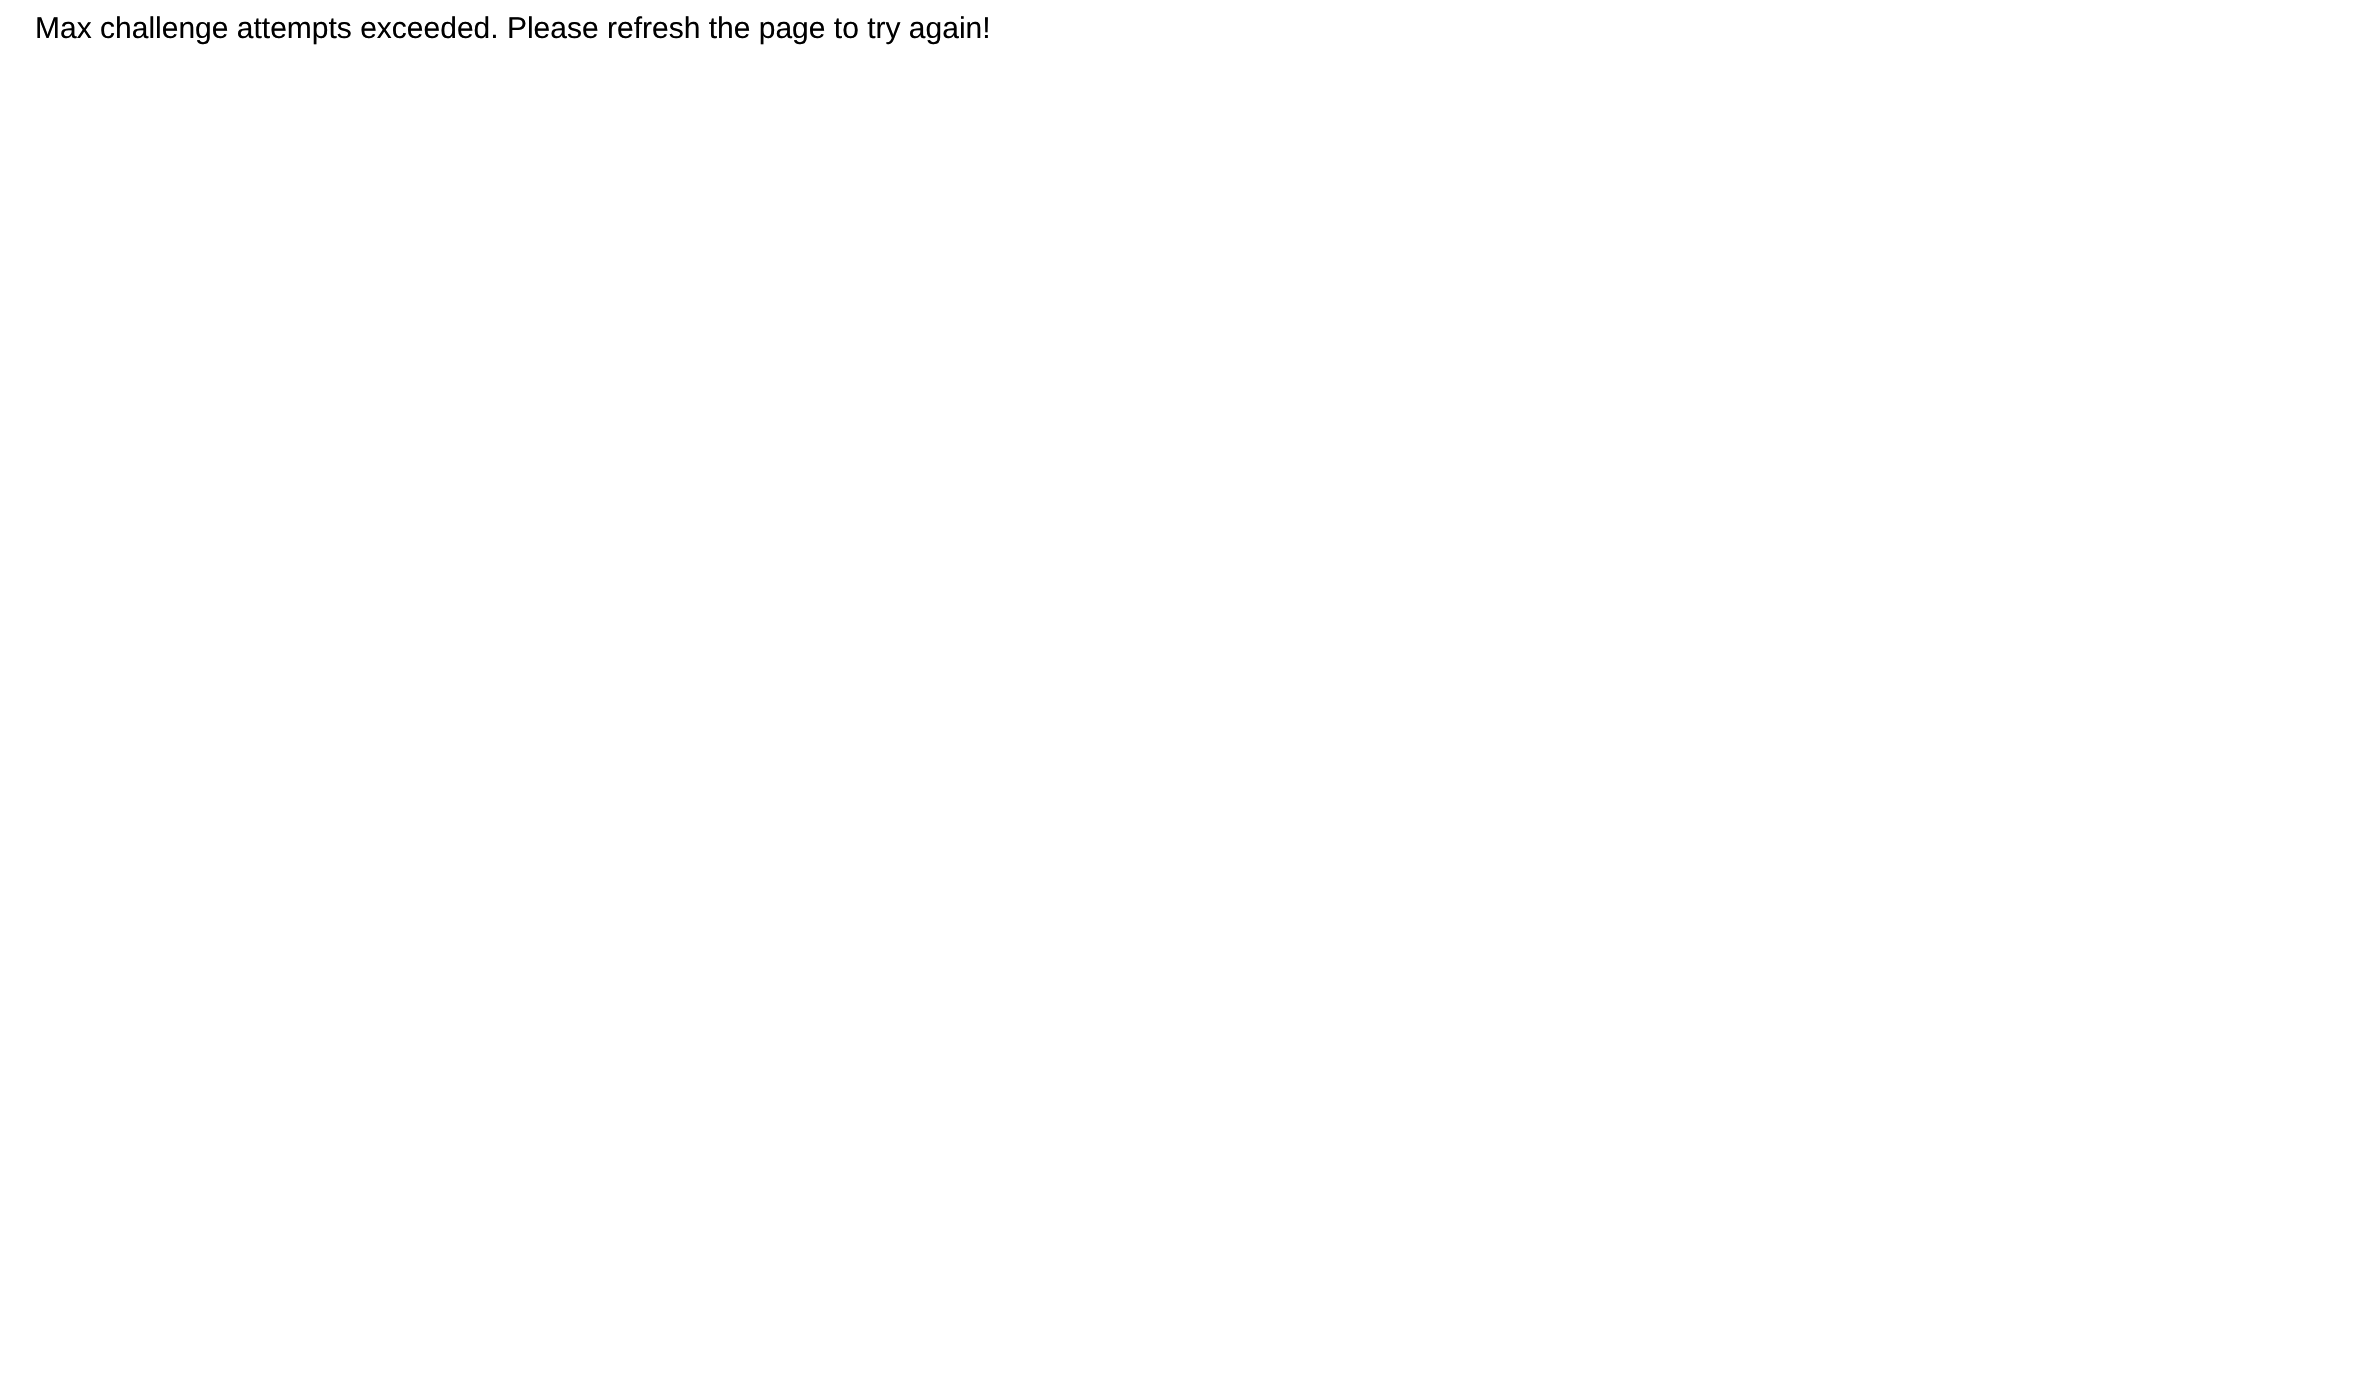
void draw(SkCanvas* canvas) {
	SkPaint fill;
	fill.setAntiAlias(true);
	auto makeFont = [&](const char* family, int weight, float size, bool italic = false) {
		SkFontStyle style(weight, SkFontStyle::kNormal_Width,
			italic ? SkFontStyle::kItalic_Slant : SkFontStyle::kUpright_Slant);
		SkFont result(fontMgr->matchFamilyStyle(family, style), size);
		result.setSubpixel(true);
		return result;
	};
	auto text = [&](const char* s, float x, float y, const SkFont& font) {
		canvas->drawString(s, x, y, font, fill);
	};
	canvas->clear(0xFFFFFFFF);
	auto font1 = makeFont("Liberation Sans", 400, 30);
	fill.setColor(0xFF000000);
	text("Max challenge attempts exceeded. Please refresh the page to try again!", 35, 38, font1);
}
